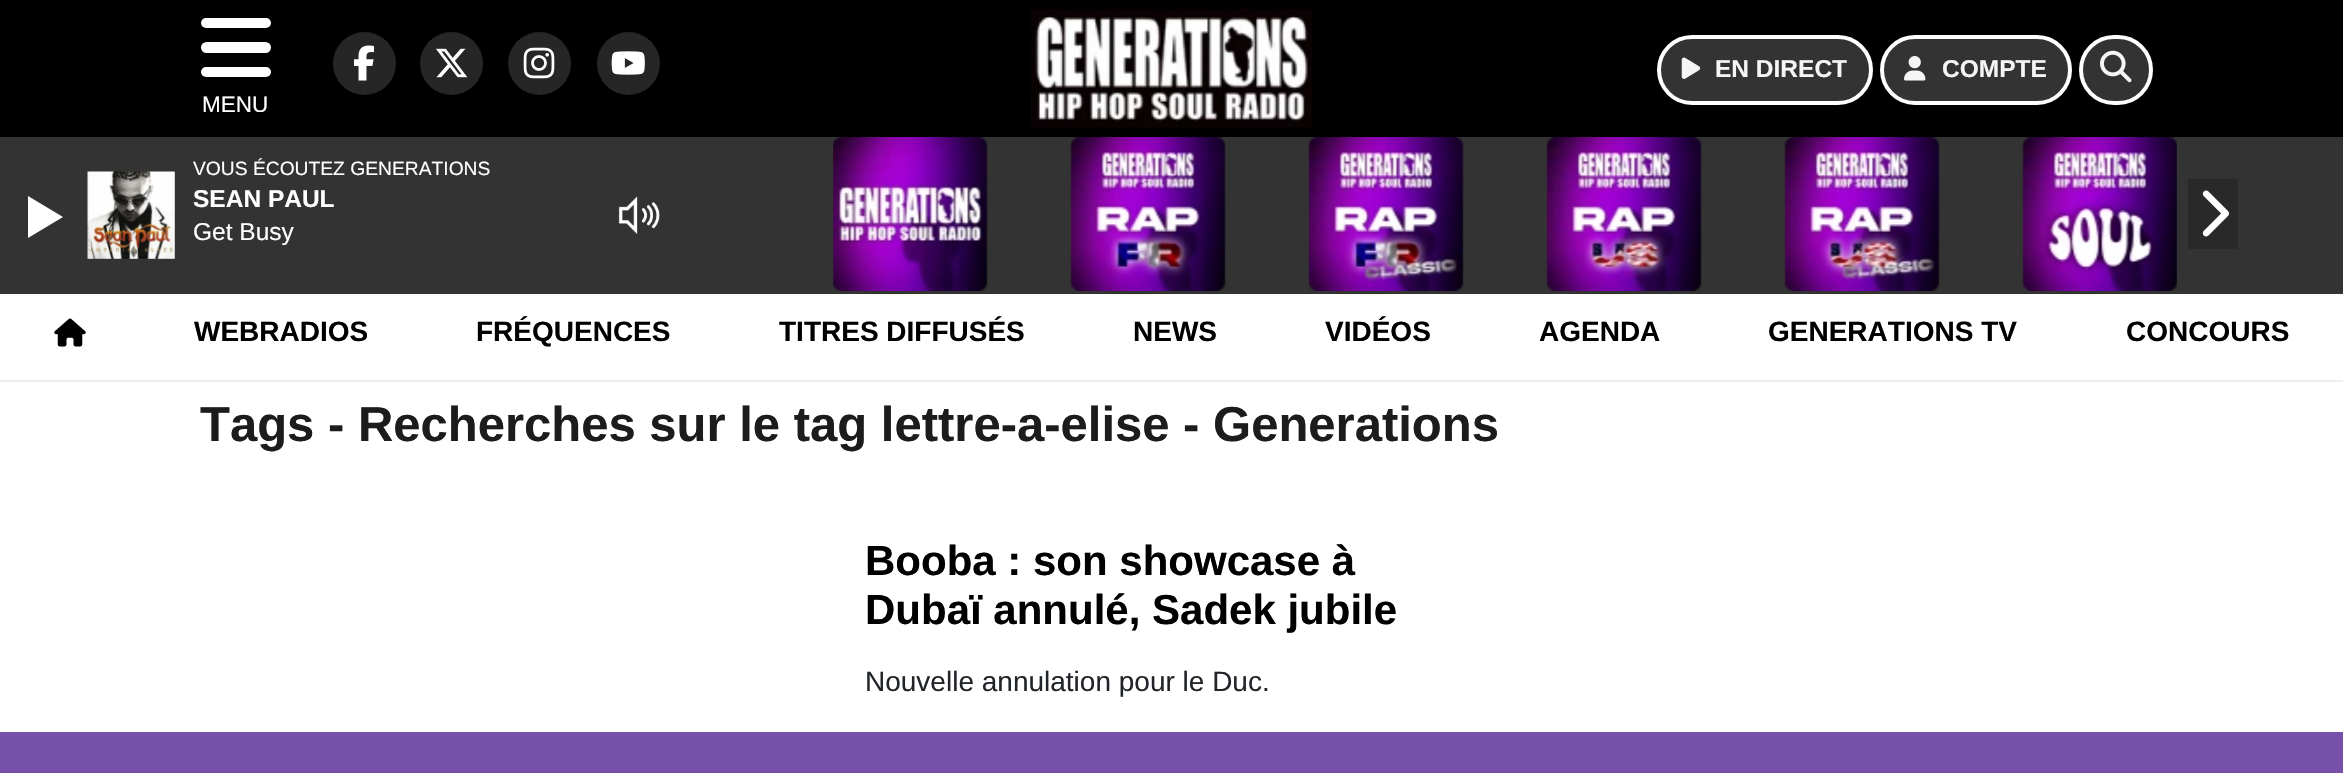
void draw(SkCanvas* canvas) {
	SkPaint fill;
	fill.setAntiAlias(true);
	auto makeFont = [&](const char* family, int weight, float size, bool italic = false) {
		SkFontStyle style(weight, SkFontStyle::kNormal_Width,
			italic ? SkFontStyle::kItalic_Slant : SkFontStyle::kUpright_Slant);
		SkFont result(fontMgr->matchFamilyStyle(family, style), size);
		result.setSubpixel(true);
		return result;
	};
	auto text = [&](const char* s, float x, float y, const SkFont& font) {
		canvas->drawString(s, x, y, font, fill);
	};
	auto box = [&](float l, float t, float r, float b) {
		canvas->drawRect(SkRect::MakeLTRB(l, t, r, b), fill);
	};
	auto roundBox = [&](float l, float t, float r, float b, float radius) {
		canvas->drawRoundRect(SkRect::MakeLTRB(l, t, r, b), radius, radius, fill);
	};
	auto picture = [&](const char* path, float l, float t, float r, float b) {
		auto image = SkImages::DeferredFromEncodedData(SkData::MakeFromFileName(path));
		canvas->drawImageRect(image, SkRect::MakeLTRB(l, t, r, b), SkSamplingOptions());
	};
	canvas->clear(0xFFFFFFFF);
	fill.setColor(0xFF000000);
	box(0, 0, 2343, 137);
	fill.setColor(0xFF262626);
	canvas->drawCircle(364.5f, 63.5f, 31.5f, fill);
	picture("image0.png", 354, 45, 374, 81);
	canvas->drawCircle(451.5f, 63.5f, 31.5f, fill);
	picture("image1.png", 436, 48, 468, 78);
	canvas->drawCircle(539.5f, 63.5f, 31.5f, fill);
	picture("image2.png", 523, 47, 555, 79);
	canvas->drawCircle(628.5f, 63.5f, 31.5f, fill);
	picture("image3.png", 611, 51, 645, 75);
	picture("image4.png", 1031, 9, 1313, 128);
	fill.setColor(0xFF333333);
	canvas->drawRoundRect(SkRect::MakeLTRB(1659, 37, 1871, 103), 33, 33, fill);
	fill.setStyle(SkPaint::kStroke_Style);
	fill.setStrokeWidth(4);
	fill.setColor(0xFFFFFFFF);
	canvas->drawRoundRect(SkRect::MakeLTRB(1659, 37, 1871, 103), 33, 33, fill);
	picture("image5.png", 1681, 57, 1701, 79);
	fill.setStyle(SkPaint::kFill_Style);
	fill.setColor(0xFF333333);
	canvas->drawRoundRect(SkRect::MakeLTRB(1882, 37, 2070, 103), 33, 33, fill);
	fill.setStyle(SkPaint::kStroke_Style);
	fill.setColor(0xFFFFFFFF);
	canvas->drawRoundRect(SkRect::MakeLTRB(1882, 37, 2070, 103), 33, 33, fill);
	picture("image6.png", 1904, 56, 1926, 81);
	fill.setStyle(SkPaint::kFill_Style);
	fill.setColor(0xFF333333);
	canvas->drawRoundRect(SkRect::MakeLTRB(2081, 37, 2151, 103), 33, 33, fill);
	fill.setStyle(SkPaint::kStroke_Style);
	fill.setColor(0xFFFFFFFF);
	canvas->drawRoundRect(SkRect::MakeLTRB(2081, 37, 2151, 103), 33, 33, fill);
	picture("image7.png", 2100, 50, 2132, 83);
	fill.setStyle(SkPaint::kFill_Style);
	roundBox(201, 18, 271, 28, 5);
	roundBox(201, 42, 271, 53, 5.5f);
	roundBox(201, 67, 271, 77, 5);
	fill.setColor(0xFFEEEEEE);
	box(0, 380, 2343, 382);
	picture("image8.png", 54, 318, 86, 347);
	fill.setColor(0xFF7750A9);
	box(0, 732, 2343, 773);
	fill.setColor(0xFF333333);
	box(0, 137, 2343, 294);
	picture("image9.png", 87, 171, 175, 259);
	fill.setColor(0xFFFFFFFF);
	canvas->drawPath(SkPathBuilder().moveTo(28, 238).lineTo(28, 196).lineTo(63, 217).close().detach(), fill);
	picture("image10.png", 618, 196, 660, 234);
	picture("image11.png", 833, 137, 988, 291);
	picture("image12.png", 1070, 137, 1226, 291);
	picture("image13.png", 1308, 137, 1464, 291);
	picture("image14.png", 1546, 137, 1702, 291);
	picture("image15.png", 1784, 137, 1940, 291);
	picture("image16.png", 2022, 137, 2177, 291);
	fill.setColor(0xFF292929);
	box(2188, 179, 2238, 249);
	picture("image17.png", 2202, 190, 2229, 237);
	auto font1 = makeFont("Liberation Sans", 700, 24.5f);
	fill.setColor(0xFFF5F5F5);
	text("EN DIRECT", 1715, 77, font1);
	text("COMPTE", 1942, 77, font1);
	canvas->save();
	canvas->clipRect(SkRect::MakeLTRB(201, 18, 271, 112));
	auto font2 = makeFont("Liberation Sans", 400, 22.5f);
	fill.setColor(0xFFFFFFFF);
	text("MENU", 202, 112, font2);
	canvas->restore();
	auto font3 = makeFont("Liberation Sans", 700, 28);
	fill.setColor(0xFF000000);
	text("WEBRADIOS", 194, 341, font3);
	text("FRÉQUENCES", 476, 341, font3);
	text("TITRES DIFFUSÉS", 779, 341, font3);
	text("NEWS", 1133, 341, font3);
	text("VIDÉOS", 1325, 341, font3);
	text("AGENDA", 1539, 341, font3);
	text("GENERATIONS TV", 1768, 341, font3);
	text("CONCOURS", 2126, 341, font3);
	auto font4 = makeFont("Liberation Sans", 700, 49);
	fill.setColor(0xFF1C1C1C);
	text("Tags - Recherches sur le tag lettre-a-elise - Generations", 200, 441, font4);
	auto font5 = makeFont("Liberation Sans", 700, 42);
	fill.setColor(0xFF000000);
	text("Booba : son showcase à", 865, 575, font5);
	text("Dubaï annulé, Sadek jubile", 865, 624, font5);
	auto font6 = makeFont("Liberation Sans", 400, 28);
	fill.setColor(0xFF212529);
	text("Nouvelle annulation pour le Duc.", 865, 691, font6);
	auto font7 = makeFont("Liberation Sans", 400, 19.25f);
	fill.setColor(0xFFFFFFFF);
	text("VOUS ÉCOUTEZ GENERATIONS", 193, 175, font7);
	text("SEAN PAUL", 193, 207, font1);
	auto font8 = makeFont("Liberation Sans", 400, 24.5f);
	text("Get Busy", 193, 240, font8);
}
